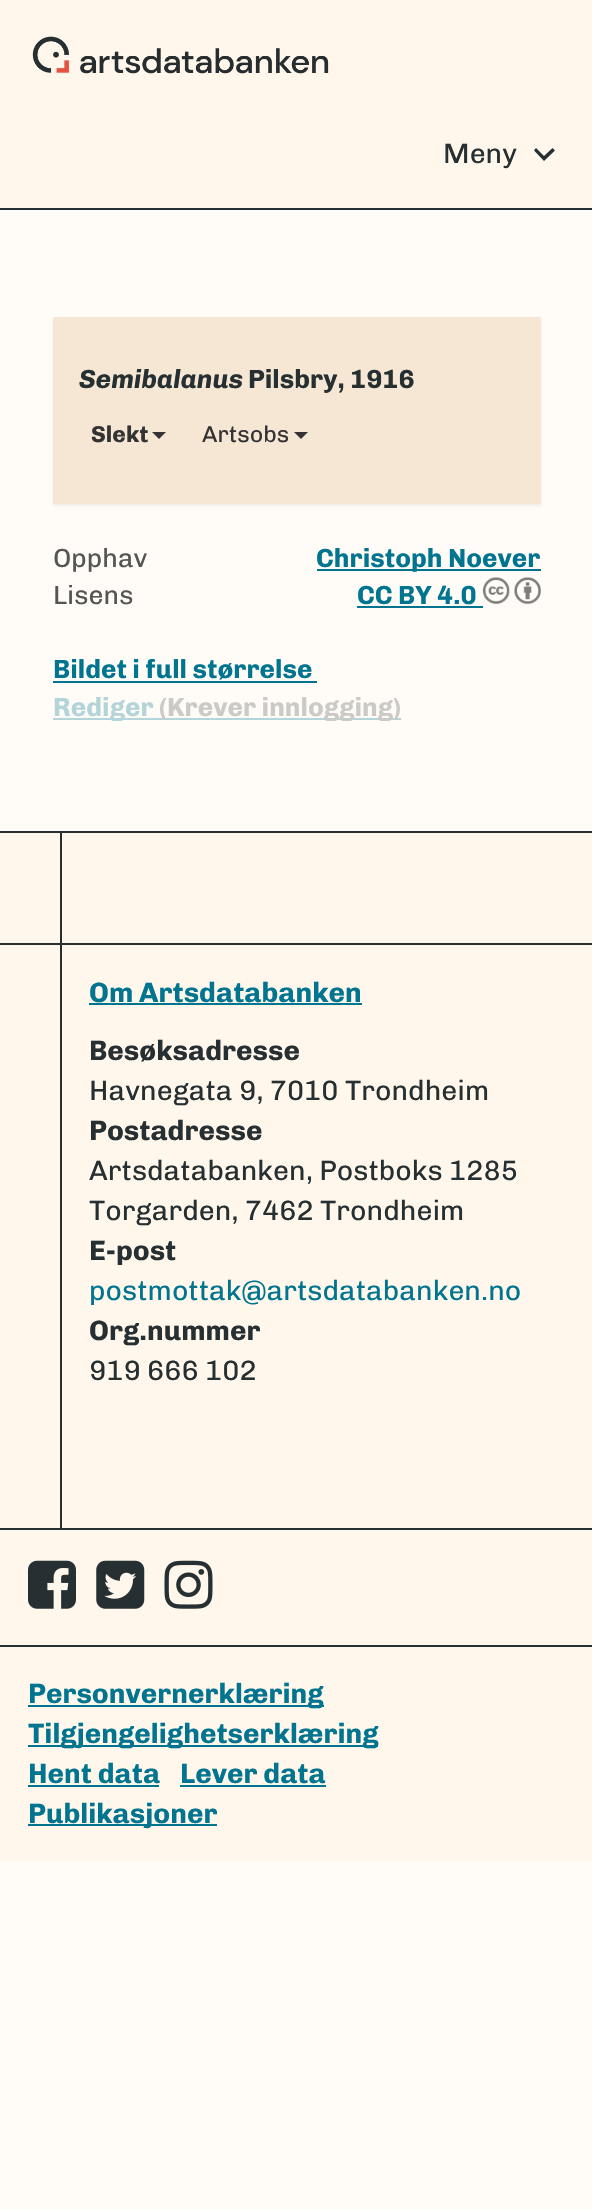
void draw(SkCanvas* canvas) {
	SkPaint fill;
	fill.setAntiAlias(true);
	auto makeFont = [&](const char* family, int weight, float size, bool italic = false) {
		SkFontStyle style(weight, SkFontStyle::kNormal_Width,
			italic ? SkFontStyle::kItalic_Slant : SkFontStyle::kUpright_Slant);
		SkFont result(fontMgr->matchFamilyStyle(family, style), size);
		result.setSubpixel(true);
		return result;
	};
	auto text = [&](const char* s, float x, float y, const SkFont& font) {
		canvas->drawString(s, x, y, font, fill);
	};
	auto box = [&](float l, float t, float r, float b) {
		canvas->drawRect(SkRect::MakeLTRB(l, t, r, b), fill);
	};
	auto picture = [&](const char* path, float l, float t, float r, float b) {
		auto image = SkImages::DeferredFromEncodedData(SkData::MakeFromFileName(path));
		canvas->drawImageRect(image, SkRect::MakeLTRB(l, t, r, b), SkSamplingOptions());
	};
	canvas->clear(0xFFFFFCF7);
	fill.setColor(0xFFFFF7EB);
	box(0, 0, 592, 208);
	fill.setColor(0xFF262F31);
	box(0, 208, 592, 210);
	picture("image0.png", 32, 36, 329, 74);
	canvas->drawPath(SkPathBuilder().moveTo(552.5f, 148).lineTo(555, 150.5f).lineTo(544, 161).lineTo(534, 150.5f).lineTo(536, 148).lineTo(544, 156).close().detach(), fill);
	fill.setColor(0x0D000000);
	fill.setMaskFilter(SkMaskFilter::MakeBlur(kNormal_SkBlurStyle, 1));
	canvas->drawRect(SkRect::MakeLTRB(53, 319, 541, 506), fill);
	fill.setMaskFilter(nullptr);
	fill.setColor(0xFFF5E7D3);
	box(53, 317, 541, 504);
	fill.setColor(0xFF333333);
	canvas->drawPath(SkPathBuilder().moveTo(152, 432).lineTo(166, 432).lineTo(159, 439).close().detach(), fill);
	canvas->drawPath(SkPathBuilder().moveTo(294, 432).lineTo(308, 432).lineTo(301, 439).close().detach(), fill);
	fill.setColor(0xFF017590);
	box(317, 569, 541, 571);
	box(357, 606, 483, 608);
	picture("image1.png", 483, 577, 510, 604);
	picture("image2.png", 514, 577, 541, 604);
	box(53, 681, 317, 683);
	fill.setColor(0xFFB3D4D8);
	box(53, 718, 401, 720);
	fill.setColor(0xFFFFF7EB);
	box(0, 833, 592, 1862);
	fill.setColor(0xFF262F31);
	box(0, 831, 592, 833);
	box(0, 943, 592, 945);
	box(60, 833, 62, 943);
	box(60, 945, 62, 1528);
	fill.setColor(0xFF017590);
	box(89, 1003, 362, 1005);
	fill.setColor(0xFF262F31);
	box(0, 1528, 592, 1530);
	picture("image3.png", 28, 1560, 76, 1609);
	picture("image4.png", 96, 1560, 145, 1609);
	picture("image5.png", 164, 1560, 213, 1609);
	box(0, 1645, 592, 1647);
	fill.setColor(0xFF017590);
	box(28, 1705, 324, 1707);
	box(28, 1745, 378, 1747);
	box(28, 1785, 159, 1787);
	box(180, 1785, 326, 1787);
	box(28, 1824, 217, 1826);
	auto font1 = makeFont("Chivo", 400, 28);
	fill.setColor(0xFF262F31);
	text("Meny", 443, 163, font1);
	auto font2 = makeFont("Chivo", 700, 26.25f, true);
	text("Semibalanus", 79, 388, font2);
	auto font3 = makeFont("Chivo", 700, 26.25f);
	text("Pilsbry, 1916", 248, 388, font3);
	auto font4 = makeFont("Chivo", 700, 23);
	fill.setColor(0xFF333333);
	text("Slekt", 91, 442, font4);
	auto font5 = makeFont("Chivo", 400, 23);
	text("Artsobs", 202, 442, font5);
	auto font6 = makeFont("Chivo", 400, 26.25f);
	fill.setColor(0xFF555555);
	text("Opphav", 53, 567, font6);
	fill.setColor(0xFF017590);
	text("Christoph Noever", 316, 567, font3);
	fill.setColor(0xFF555555);
	text("Lisens", 53, 604, font6);
	fill.setColor(0xFF017590);
	text("CC BY 4.0", 357, 604, font3);
	text("Bildet i full størrelse", 53, 678, font3);
	fill.setColor(0xFFB3D4D8);
	text("Rediger", 53, 716, font3);
	fill.setColor(0xFFCCCAC6);
	text("(Krever innlogging)", 159, 716, font3);
	auto font7 = makeFont("Chivo", 700, 28);
	fill.setColor(0xFF017590);
	text("Om Artsdatabanken", 89, 1002, font7);
	fill.setColor(0xFF262F31);
	text("Besøksadresse", 89, 1060, font7);
	text("Havnegata 9, 7010 Trondheim", 89, 1100, font1);
	text("Postadresse", 89, 1140, font7);
	text("Artsdatabanken, Postboks 1285", 89, 1180, font1);
	text("Torgarden, 7462 Trondheim", 89, 1220, font1);
	text("E-post", 89, 1260, font7);
	fill.setColor(0xFF017590);
	text("postmottak@artsdatabanken.no", 89, 1300, font1);
	fill.setColor(0xFF262F31);
	text("Org.nummer", 89, 1340, font7);
	text("919 666 102", 89, 1380, font1);
	fill.setColor(0xFF017590);
	text("Personvernerklæring", 28, 1703, font7);
	text("Tilgjengelighetserklæring", 28, 1743, font7);
	text("Hent data", 28, 1783, font7);
	text("Lever data", 180, 1783, font7);
	text("Publikasjoner", 28, 1823, font7);
}
